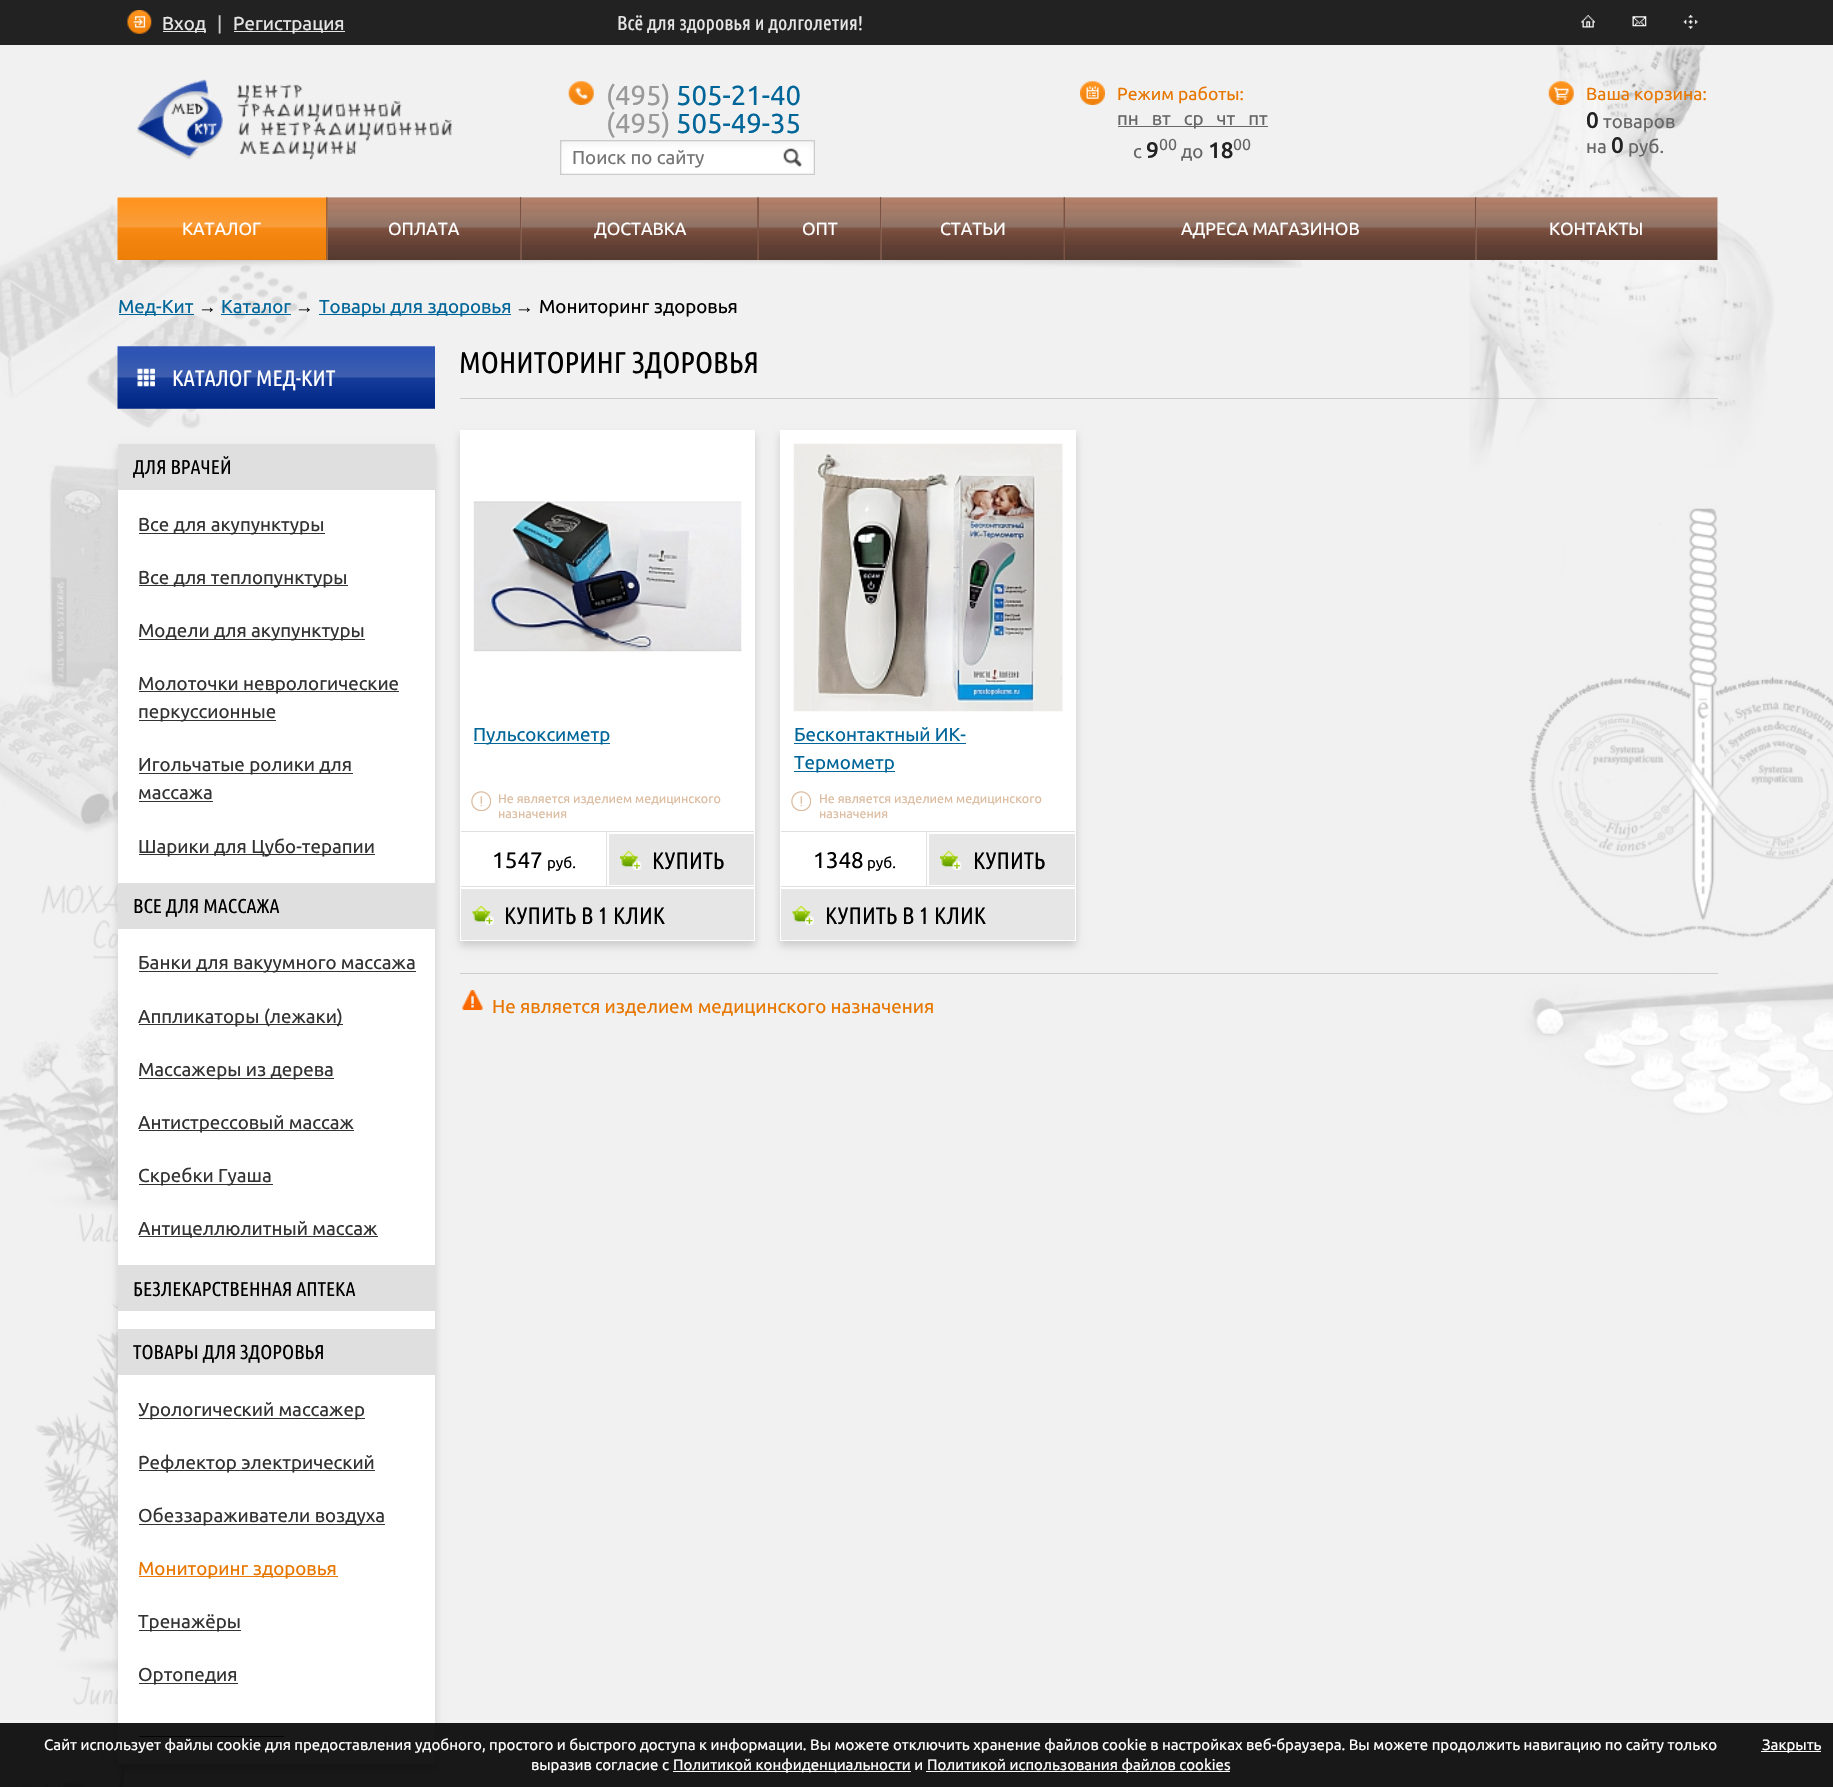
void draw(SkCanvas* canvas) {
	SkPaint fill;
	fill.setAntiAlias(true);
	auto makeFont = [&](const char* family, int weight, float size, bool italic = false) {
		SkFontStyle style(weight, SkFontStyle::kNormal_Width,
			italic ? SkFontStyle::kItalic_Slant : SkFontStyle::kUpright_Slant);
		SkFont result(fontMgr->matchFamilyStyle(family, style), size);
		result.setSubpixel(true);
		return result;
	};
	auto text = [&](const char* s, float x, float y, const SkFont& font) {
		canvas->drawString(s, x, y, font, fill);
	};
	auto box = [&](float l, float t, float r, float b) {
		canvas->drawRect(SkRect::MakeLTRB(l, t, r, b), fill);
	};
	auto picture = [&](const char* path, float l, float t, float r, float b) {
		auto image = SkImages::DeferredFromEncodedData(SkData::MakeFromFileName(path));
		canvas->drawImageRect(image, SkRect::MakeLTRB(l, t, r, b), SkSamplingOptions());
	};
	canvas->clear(0xFFFFFFFF);
	picture("image0.png", 0, 45, 1833, 1787);
	fill.setColor(0xFF222222);
	box(0, 0, 1833, 45);
	picture("image1.png", 127, 10, 152, 34);
	fill.setColor(0xFFE6E6E6);
	box(163, 31, 206, 32);
	box(234, 31, 345, 32);
	picture("image2.png", 1581, 15, 1595, 28);
	picture("image3.png", 1632, 16, 1647, 27);
	picture("image4.png", 1683, 15, 1698, 29);
	picture("image5.png", 136, 79, 453, 161);
	picture("image6.png", 568, 81, 594, 105);
	picture("image7.png", 1080, 81, 1105, 105);
	fill.setColor(0xFF666666);
	box(1118, 126, 1268, 127);
	picture("image8.png", 1548, 81, 1574, 105);
	picture("image9.png", 560, 140, 815, 175);
	fill.setColor(0xFFF6F6F6);
	box(327, 198, 1718, 260);
	picture("image12.png", 327, 197, 522, 260);
	picture("image13.png", 326, 197, 328, 260);
	picture("image10.png", 117, 197, 328, 260);
	picture("image11.png", 326, 197, 328, 260);
	picture("image14.png", 520, 197, 522, 260);
	picture("image15.png", 521, 197, 759, 260);
	picture("image16.png", 520, 197, 522, 244);
	picture("image17.png", 757, 197, 759, 260);
	picture("image18.png", 758, 197, 882, 260);
	picture("image19.png", 757, 197, 759, 260);
	picture("image14.png", 880, 197, 882, 260);
	picture("image20.png", 881, 197, 1065, 260);
	picture("image16.png", 880, 197, 882, 244);
	picture("image21.png", 1063, 197, 1065, 260);
	picture("image22.png", 1065, 197, 1477, 260);
	picture("image23.png", 1063, 197, 1065, 260);
	picture("image24.png", 1475, 197, 1477, 260);
	picture("image25.png", 1476, 197, 1718, 260);
	picture("image26.png", 1475, 197, 1477, 244);
	picture("image27.png", 133, 260, 1302, 268);
	fill.setColor(0xFF006699);
	box(119, 314, 194, 315);
	box(221, 314, 291, 315);
	box(319, 314, 511, 315);
	picture("image28.png", 117, 346, 435, 409);
	picture("image29.png", 137, 368, 155, 387);
	fill.setColor(0xFFCCCCCC);
	fill.setMaskFilter(SkMaskFilter::MakeBlur(kNormal_SkBlurStyle, 4));
	canvas->drawRect(SkRect::MakeLTRB(118, 449, 435, 1769), fill);
	fill.setMaskFilter(nullptr);
	fill.setColor(0xFFFFFFFF);
	box(118, 490, 435, 1764);
	fill.setColor(0xFFDFDFDF);
	box(118, 444, 435, 490);
	fill.setColor(0xFF333333);
	box(139, 533, 325, 534);
	box(139, 585, 348, 586);
	box(139, 639, 365, 640);
	box(139, 691, 399, 692);
	box(139, 720, 276, 721);
	box(139, 773, 353, 774);
	box(139, 801, 213, 802);
	box(139, 854, 375, 855);
	fill.setColor(0xFFDFDFDF);
	box(118, 883, 435, 929);
	fill.setColor(0xFF333333);
	box(139, 971, 416, 972);
	box(139, 1024, 343, 1025);
	box(139, 1078, 334, 1079);
	box(139, 1130, 354, 1131);
	box(139, 1184, 273, 1185);
	box(139, 1236, 378, 1237);
	fill.setColor(0xFFDFDFDF);
	box(118, 1265, 435, 1311);
	box(118, 1329, 435, 1375);
	fill.setColor(0xFF333333);
	box(139, 1418, 365, 1419);
	box(139, 1470, 375, 1471);
	box(139, 1524, 385, 1525);
	fill.setColor(0xFFE77700);
	box(139, 1576, 338, 1577);
	fill.setColor(0xFF333333);
	box(139, 1630, 241, 1631);
	box(139, 1683, 238, 1684);
	box(139, 1736, 284, 1737);
	fill.setColor(0xFFCCCCCC);
	box(460, 398, 1718, 399);
	fill.setMaskFilter(SkMaskFilter::MakeBlur(kNormal_SkBlurStyle, 4));
	canvas->drawRect(SkRect::MakeLTRB(460, 435, 755, 946), fill);
	fill.setMaskFilter(nullptr);
	fill.setColor(0xFFFFFFFF);
	box(460, 430, 755, 941);
	picture("image30.png", 473, 501, 742, 652);
	fill.setColor(0xFF006699);
	box(474, 743, 610, 744);
	picture("image31.png", 471, 791, 491, 811);
	fill.setColor(0xFFE0E0E0);
	box(461, 831, 754, 832);
	box(606, 831, 607, 886);
	fill.setColor(0xFFE6E6E6);
	box(609, 834, 754, 885);
	picture("image32.png", 620, 851, 642, 870);
	fill.setColor(0xFFE0E0E0);
	box(461, 886, 754, 887);
	fill.setColor(0xFFE6E6E6);
	box(461, 889, 754, 940);
	picture("image33.png", 472, 906, 494, 925);
	fill.setColor(0xFFCCCCCC);
	fill.setMaskFilter(SkMaskFilter::MakeBlur(kNormal_SkBlurStyle, 4));
	canvas->drawRect(SkRect::MakeLTRB(780, 435, 1076, 946), fill);
	fill.setMaskFilter(nullptr);
	fill.setColor(0xFFFFFFFF);
	box(780, 430, 1076, 941);
	picture("image34.png", 793, 443, 1063, 712);
	fill.setColor(0xFF006699);
	box(794, 743, 966, 744);
	box(794, 771, 895, 772);
	picture("image31.png", 791, 791, 811, 811);
	fill.setColor(0xFFE0E0E0);
	box(781, 831, 1075, 832);
	box(926, 831, 927, 886);
	fill.setColor(0xFFE6E6E6);
	box(929, 834, 1075, 885);
	picture("image35.png", 940, 851, 962, 870);
	fill.setColor(0xFFE0E0E0);
	box(781, 886, 1075, 887);
	fill.setColor(0xFFE6E6E6);
	box(781, 889, 1075, 940);
	picture("image33.png", 792, 906, 814, 925);
	picture("image36.png", 462, 990, 483, 1010);
	fill.setColor(0xFFCCCCCC);
	box(460, 973, 1718, 974);
	fill.setColor(0xE6000000);
	box(0, 1723, 1833, 1787);
	fill.setColor(0xFFFFFFFF);
	box(673, 1771, 911, 1772);
	box(926, 1771, 1230, 1772);
	box(1761, 1751, 1821, 1752);
	auto font1 = makeFont("Ubuntu", 400, 18.75f);
	fill.setColor(0xFFE6E6E6);
	text("Вход", 162, 30, font1);
	fill.setColor(0xFFCCCCCC);
	text("|", 217, 30, font1);
	fill.setColor(0xFFE6E6E6);
	text("Регистрация", 233, 30, font1);
	auto font2 = makeFont("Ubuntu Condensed", 400, 20);
	text("Всё для здоровья и долголетия!", 617, 30, font2);
	auto font3 = makeFont("Ubuntu", 400, 27.5f);
	fill.setColor(0xFF999999);
	text("(495)", 606, 105, font3);
	fill.setColor(0xFF006699);
	text("505-21-40", 676, 105, font3);
	fill.setColor(0xFF999999);
	text("(495)", 606, 133, font3);
	fill.setColor(0xFF006699);
	text("505-49-35", 676, 133, font3);
	auto font4 = makeFont("Ubuntu", 400, 17.5f);
	fill.setColor(0xFFE77700);
	text("Режим работы:", 1117, 100, font4);
	fill.setColor(0xFF666666);
	text("пн   вт   ср   чт   пт", 1117, 125, font1);
	text("с", 1133, 158, font1);
	auto font5 = makeFont("Ubuntu", 500, 22.5f);
	fill.setColor(0xFF222222);
	text("9", 1146, 158, font5);
	auto font6 = makeFont("Ubuntu", 400, 16);
	fill.setColor(0xFF666666);
	text("00", 1159, 150, font6);
	text("до", 1181, 158, font1);
	fill.setColor(0xFF222222);
	text("18", 1208, 158, font5);
	fill.setColor(0xFF666666);
	text("00", 1233, 150, font6);
	fill.setColor(0xFFE77700);
	text("Ваша корзина:", 1586, 100, font4);
	fill.setColor(0xFF222222);
	text("0", 1586, 128, font5);
	fill.setColor(0xFF666666);
	text("товаров", 1603, 128, font1);
	text("на", 1586, 153, font1);
	fill.setColor(0xFF222222);
	text("0", 1611, 153, font5);
	fill.setColor(0xFF666666);
	text("руб.", 1628, 153, font1);
	fill.setColor(0xFF757575);
	text("Поиск по сайту", 572, 164, font1);
	fill.setColor(0xFFFFFFFF);
	text("КАТАЛОГ", 182, 235, font4);
	text("ОПЛАТА", 388, 235, font4);
	text("ДОСТАВКА", 594, 235, font4);
	text("ОПТ", 802, 235, font4);
	text("СТАТЬИ", 940, 235, font4);
	text("АДРЕСА МАГАЗИНОВ", 1181, 235, font4);
	text("КОНТАКТЫ", 1549, 235, font4);
	fill.setColor(0xFF006699);
	text("Мед-Кит", 118, 313, font1);
	auto font7 = makeFont("Liberation Sans", 400, 18.75f);
	fill.setColor(0xFF000000);
	text("→", 198, 313, font7);
	fill.setColor(0xFF006699);
	text("Каталог", 221, 313, font1);
	fill.setColor(0xFF000000);
	text("→", 295, 313, font7);
	fill.setColor(0xFF006699);
	text("Товары для здоровья", 319, 313, font1);
	fill.setColor(0xFF000000);
	text("→", 515, 313, font7);
	text("Мониторинг здоровья", 539, 313, font1);
	auto font8 = makeFont("Ubuntu Condensed", 400, 22.5f);
	fill.setColor(0xFFFFFFFF);
	text("КАТАЛОГ МЕД-КИТ", 172, 386, font8);
	fill.setColor(0xFF000000);
	text("ДЛЯ ВРАЧЕЙ", 133, 474, font2);
	fill.setColor(0xFF333333);
	text("Все для акупунктуры", 138, 531, font1);
	text("Все для теплопунктуры", 138, 584, font1);
	text("Модели для акупунктуры", 138, 637, font1);
	text("Молоточки неврологические", 138, 690, font1);
	text("перкуссионные", 138, 718, font1);
	text("Игольчатые ролики для", 138, 771, font1);
	text("массажа", 138, 799, font1);
	text("Шарики для Цубо-терапии", 138, 853, font1);
	fill.setColor(0xFF000000);
	text("ВСЕ ДЛЯ МАССАЖА", 133, 913, font2);
	fill.setColor(0xFF333333);
	text("Банки для вакуумного массажа", 138, 969, font1);
	text("Аппликаторы (лежаки)", 138, 1023, font1);
	text("Массажеры из дерева", 138, 1076, font1);
	text("Антистрессовый массаж", 138, 1129, font1);
	text("Скребки Гуаша", 138, 1182, font1);
	text("Антицеллюлитный массаж", 138, 1235, font1);
	fill.setColor(0xFF000000);
	text("БЕЗЛЕКАРСТВЕННАЯ АПТЕКА", 133, 1296, font2);
	text("ТОВАРЫ ДЛЯ ЗДОРОВЬЯ", 133, 1359, font2);
	fill.setColor(0xFF333333);
	text("Урологический массажер", 138, 1416, font1);
	text("Рефлектор электрический", 138, 1469, font1);
	text("Обеззараживатели воздуха", 138, 1522, font1);
	fill.setColor(0xFFE77700);
	text("Мониторинг здоровья", 138, 1575, font1);
	fill.setColor(0xFF333333);
	text("Тренажёры", 138, 1628, font1);
	text("Ортопедия", 138, 1681, font1);
	auto font9 = makeFont("Ubuntu Condensed", 400, 30);
	fill.setColor(0xFF000000);
	text("МОНИТОРИНГ ЗДОРОВЬЯ", 459, 373, font9);
	fill.setColor(0xFF006699);
	text("Пульсоксиметр", 473, 741, font1);
	auto font10 = makeFont("Ubuntu", 400, 12.5f);
	fill.setColor(0xFFDCBB9E);
	text("Не является изделием медицинского", 498, 803, font10);
	text("назначения", 498, 818, font10);
	auto font11 = makeFont("Ubuntu", 400, 22.5f);
	fill.setColor(0xFF000000);
	text("1547", 492, 868, font11);
	auto font12 = makeFont("Ubuntu", 400, 15);
	text("руб.", 547, 868, font12);
	auto font13 = makeFont("Ubuntu Condensed", 400, 23.75f);
	text("КУПИТЬ", 652, 869, font13);
	text("КУПИТЬ В 1 КЛИК", 504, 924, font13);
	fill.setColor(0xFF006699);
	text("Бесконтактный ИК-", 794, 741, font1);
	text("Термометр", 794, 769, font1);
	fill.setColor(0xFFDCBB9E);
	text("Не является изделием медицинского", 819, 803, font10);
	text("назначения", 819, 818, font10);
	fill.setColor(0xFF000000);
	text("1348", 813, 868, font11);
	text("руб.", 867, 868, font12);
	text("КУПИТЬ", 973, 869, font13);
	text("КУПИТЬ В 1 КЛИК", 825, 924, font13);
	fill.setColor(0xFFE77700);
	text("Не является изделием медицинского назначения", 492, 1013, font1);
	fill.setColor(0xFFFFFFFF);
	text("Сайт использует файлы cookie для предоставления удобного, простого и быстрого доступа к информации. Вы можете отключить хранение файлов cookie в настройках веб-браузера. Вы можете продолжить навигацию по сайту только", 44, 1750, font12);
	text("выразив согласие с", 531, 1770, font12);
	text("Политикой конфиденциальности и", 673, 1770, font12);
	text("Политикой использования файлов cookies", 927, 1770, font12);
	text("Закрыть", 1762, 1750, font12);
}
